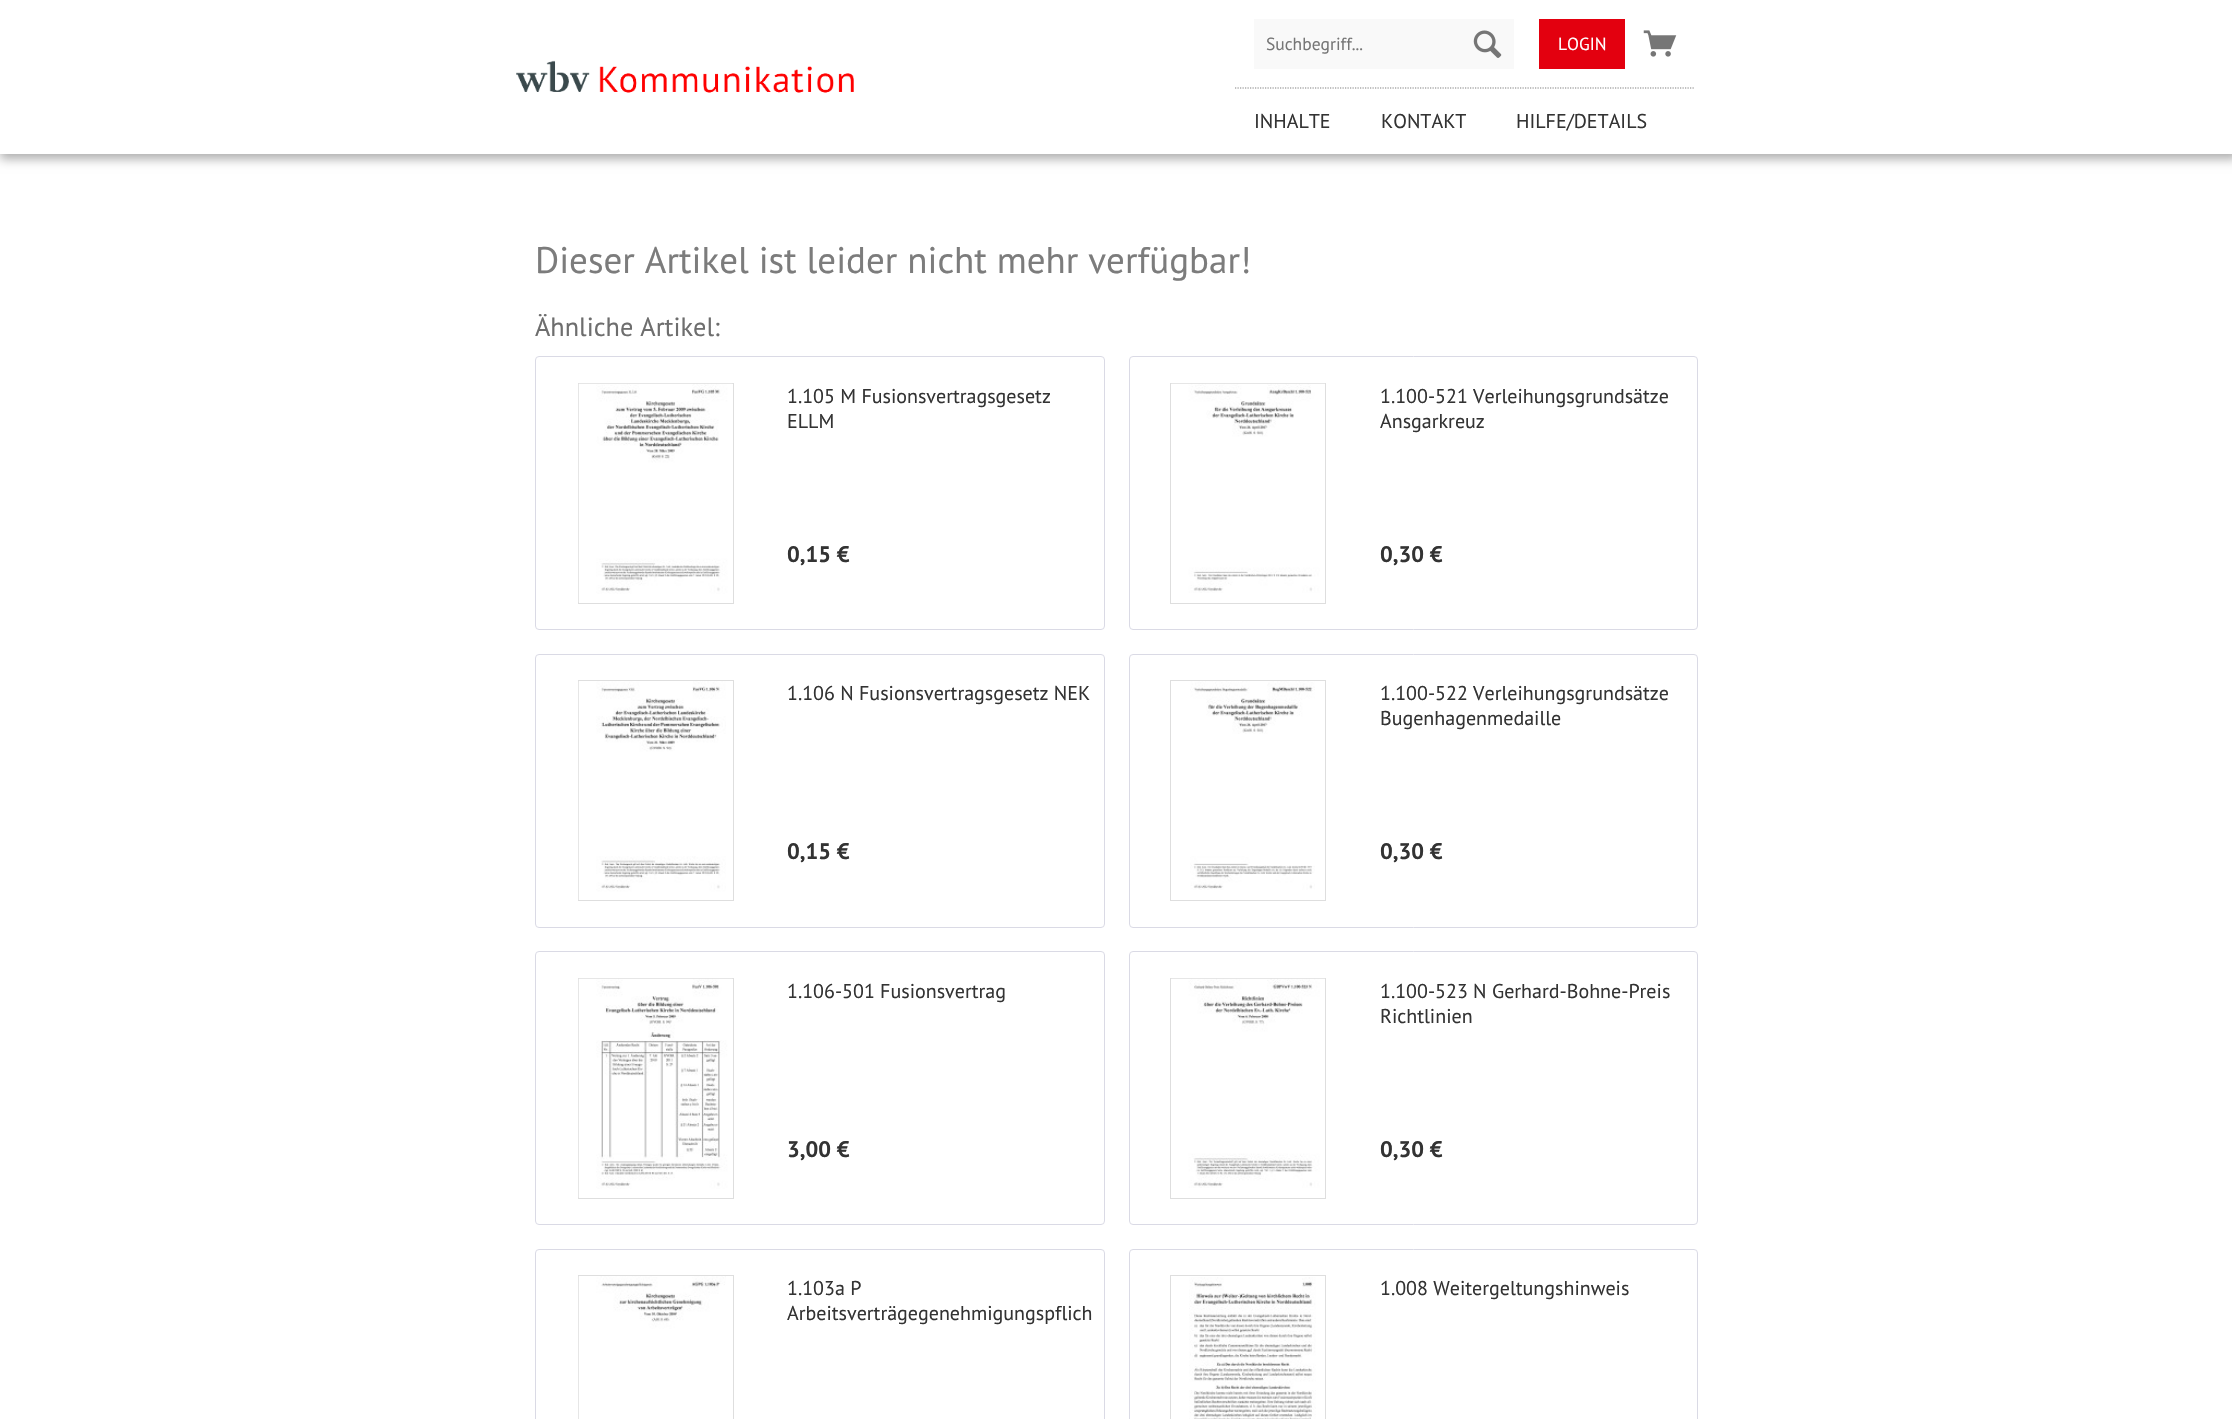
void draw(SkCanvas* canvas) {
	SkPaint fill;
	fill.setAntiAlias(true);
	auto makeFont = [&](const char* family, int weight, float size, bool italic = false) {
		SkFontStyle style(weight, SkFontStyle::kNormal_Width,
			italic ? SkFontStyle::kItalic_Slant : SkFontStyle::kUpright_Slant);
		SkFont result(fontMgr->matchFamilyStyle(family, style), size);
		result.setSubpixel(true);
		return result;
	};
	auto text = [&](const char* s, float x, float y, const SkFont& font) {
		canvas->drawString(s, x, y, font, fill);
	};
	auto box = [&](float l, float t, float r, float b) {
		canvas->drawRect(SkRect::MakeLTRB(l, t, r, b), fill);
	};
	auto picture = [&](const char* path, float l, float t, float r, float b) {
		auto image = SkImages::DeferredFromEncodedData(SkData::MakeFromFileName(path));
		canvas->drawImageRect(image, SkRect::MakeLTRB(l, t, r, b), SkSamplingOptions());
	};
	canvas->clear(0xFFFFFFFF);
	fill.setColor(0x52000000);
	fill.setMaskFilter(SkMaskFilter::MakeBlur(kNormal_SkBlurStyle, 5));
	canvas->drawRect(SkRect::MakeLTRB(0, 0, 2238, 159), fill);
	fill.setMaskFilter(nullptr);
	fill.setColor(0xFFFFFFFF);
	box(0, 0, 2232, 154);
	picture("image0.png", 516, 60, 854, 93);
	fill.setStyle(SkPaint::kStroke_Style);
	fill.setStrokeWidth(1.2f);
	fill.setColor(0xFF808080);
	fill.setPathEffect(SkDashPathEffect::Make({{1.25f, 1.25f}}, 0));
	canvas->drawPath(SkPathBuilder().moveTo(1235, 88).lineTo(1695, 88).detach(), fill);
	fill.setPathEffect(nullptr);
	fill.setStyle(SkPaint::kFill_Style);
	fill.setColor(0xFFF9F9F9);
	box(1254, 19, 1514, 69);
	picture("image1.png", 1473, 30, 1502, 58);
	fill.setColor(0xFFE3000F);
	box(1539, 19, 1625, 69);
	picture("image2.png", 1643, 30, 1677, 57);
	fill.setStyle(SkPaint::kStroke_Style);
	fill.setStrokeWidth(1);
	fill.setColor(0xFFDADAE5);
	canvas->drawRoundRect(SkRect::MakeLTRB(535.5f, 356.5f, 1104.5f, 629.5f), 3.5f, 3.5f, fill);
	fill.setColor(0xFFDEDEDE);
	canvas->drawRect(SkRect::MakeLTRB(578.5f, 383.5f, 733.5f, 603.5f), fill);
	picture("image3.png", 578, 383, 733, 603);
	fill.setColor(0xFFDADAE5);
	canvas->drawRoundRect(SkRect::MakeLTRB(1129.5f, 356.5f, 1697.5f, 629.5f), 3.5f, 3.5f, fill);
	fill.setColor(0xFFDEDEDE);
	canvas->drawRect(SkRect::MakeLTRB(1170.5f, 383.5f, 1325.5f, 603.5f), fill);
	picture("image4.png", 1171, 383, 1325, 593);
	fill.setColor(0xFFDADAE5);
	canvas->drawRoundRect(SkRect::MakeLTRB(535.5f, 654.5f, 1104.5f, 927.5f), 3.5f, 3.5f, fill);
	fill.setColor(0xFFDEDEDE);
	canvas->drawRect(SkRect::MakeLTRB(578.5f, 680.5f, 733.5f, 900.5f), fill);
	picture("image5.png", 578, 681, 726, 900);
	fill.setColor(0xFFDADAE5);
	canvas->drawRoundRect(SkRect::MakeLTRB(1129.5f, 654.5f, 1697.5f, 927.5f), 3.5f, 3.5f, fill);
	fill.setColor(0xFFDEDEDE);
	canvas->drawRect(SkRect::MakeLTRB(1170.5f, 680.5f, 1325.5f, 900.5f), fill);
	picture("image6.png", 1190, 681, 1315, 890);
	fill.setColor(0xFFDADAE5);
	canvas->drawRoundRect(SkRect::MakeLTRB(535.5f, 951.5f, 1104.5f, 1224.5f), 3.5f, 3.5f, fill);
	fill.setColor(0xFFDEDEDE);
	canvas->drawRect(SkRect::MakeLTRB(578.5f, 978.5f, 733.5f, 1198.5f), fill);
	picture("image7.png", 578, 978, 733, 1198);
	fill.setColor(0xFFDADAE5);
	canvas->drawRoundRect(SkRect::MakeLTRB(1129.5f, 951.5f, 1697.5f, 1224.5f), 3.5f, 3.5f, fill);
	fill.setColor(0xFFDEDEDE);
	canvas->drawRect(SkRect::MakeLTRB(1170.5f, 978.5f, 1325.5f, 1198.5f), fill);
	picture("image8.png", 1171, 978, 1325, 1188);
	fill.setColor(0xFFDADAE5);
	canvas->drawRoundRect(SkRect::MakeLTRB(535.5f, 1249.5f, 1104.5f, 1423.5f), 3.5f, 3.5f, fill);
	fill.setColor(0xFFDEDEDE);
	canvas->drawRect(SkRect::MakeLTRB(578.5f, 1275.5f, 733.5f, 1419.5f), fill);
	picture("image9.png", 578, 1276, 726, 1419);
	fill.setColor(0xFFDADAE5);
	canvas->drawRoundRect(SkRect::MakeLTRB(1129.5f, 1249.5f, 1697.5f, 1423.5f), 3.5f, 3.5f, fill);
	fill.setColor(0xFFDEDEDE);
	canvas->drawRect(SkRect::MakeLTRB(1170.5f, 1275.5f, 1325.5f, 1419.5f), fill);
	picture("image10.png", 1189, 1277, 1316, 1419);
	auto font1 = makeFont("PT Sans", 400, 17.5f);
	fill.setStyle(SkPaint::kFill_Style);
	fill.setColor(0xFF767676);
	text("Suchbegriff...", 1266, 50, font1);
	fill.setColor(0xFFFFFFFF);
	text("LOGIN", 1558, 50, font1);
	auto font2 = makeFont("PT Sans", 400, 20);
	fill.setColor(0xFF333333);
	text("INHALTE", 1254, 128, font2);
	text("KONTAKT", 1381, 128, font2);
	text("HILFE/DETAILS", 1516, 128, font2);
	auto font3 = makeFont("PT Sans", 400, 37);
	fill.setColor(0xFF7C7C7C);
	text("Dieser Artikel ist leider nicht mehr verfügbar!", 535, 273, font3);
	auto font4 = makeFont("PT Sans", 400, 26.25f);
	fill.setColor(0xFF6E6E6E);
	text("Ähnliche Artikel:", 535, 336, font4);
	fill.setColor(0xFF333333);
	text("1.105 M Fusionsvertragsgesetz", 787, 403, font2);
	text("ELLM", 787, 428, font2);
	auto font5 = makeFont("PT Sans", 700, 22.5f);
	text("0,15 €", 787, 562, font5);
	text("1.100-521 Verleihungsgrundsätze", 1380, 403, font2);
	text("Ansgarkreuz", 1380, 428, font2);
	text("0,30 €", 1380, 562, font5);
	text("1.106 N Fusionsvertragsgesetz NEK", 787, 700, font2);
	text("0,15 €", 787, 859, font5);
	text("1.100-522 Verleihungsgrundsätze", 1380, 700, font2);
	text("Bugenhagenmedaille", 1380, 725, font2);
	text("0,30 €", 1380, 859, font5);
	text("1.106-501 Fusionsvertrag", 787, 998, font2);
	text("3,00 €", 787, 1157, font5);
	text("1.100-523 N Gerhard-Bohne-Preis", 1380, 998, font2);
	text("Richtlinien", 1380, 1023, font2);
	text("0,30 €", 1380, 1157, font5);
	text("1.103a P", 787, 1295, font2);
	text("Arbeitsverträgegenehmigungspflich", 787, 1320, font2);
	text("1.008 Weitergeltungshinweis", 1380, 1295, font2);
}
